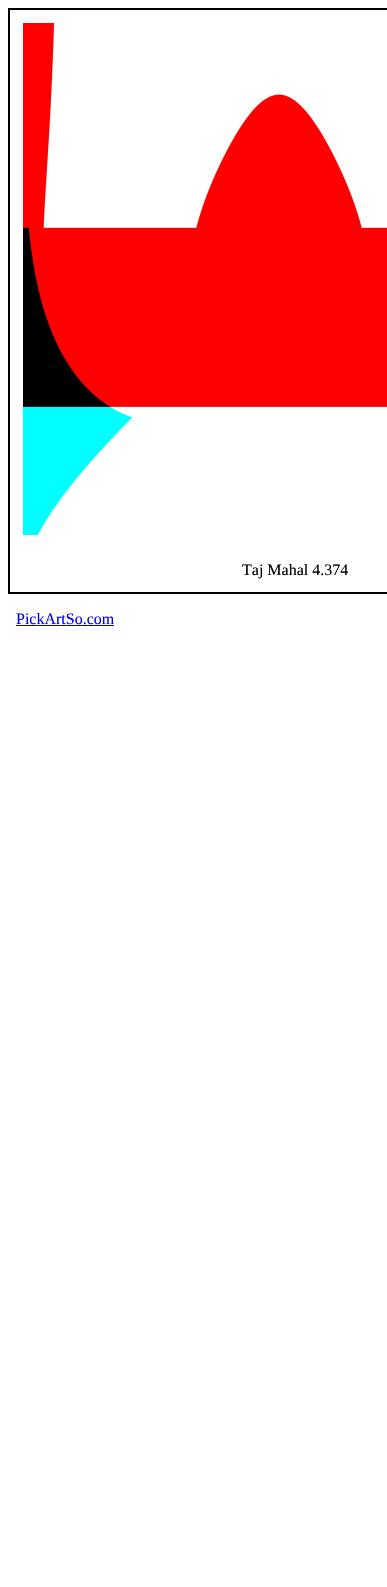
void draw(SkCanvas* canvas) {
	SkPaint fill;
	fill.setAntiAlias(true);
	auto makeFont = [&](const char* family, int weight, float size, bool italic = false) {
		SkFontStyle style(weight, SkFontStyle::kNormal_Width,
			italic ? SkFontStyle::kItalic_Slant : SkFontStyle::kUpright_Slant);
		SkFont result(fontMgr->matchFamilyStyle(family, style), size);
		result.setSubpixel(true);
		return result;
	};
	auto text = [&](const char* s, float x, float y, const SkFont& font) {
		canvas->drawString(s, x, y, font, fill);
	};
	auto box = [&](float l, float t, float r, float b) {
		canvas->drawRect(SkRect::MakeLTRB(l, t, r, b), fill);
	};
	auto picture = [&](const char* path, float l, float t, float r, float b) {
		auto image = SkImages::DeferredFromEncodedData(SkData::MakeFromFileName(path));
		canvas->drawImageRect(image, SkRect::MakeLTRB(l, t, r, b), SkSamplingOptions());
	};
	canvas->clear(0xFFFFFFFF);
	fill.setStyle(SkPaint::kStroke_Style);
	fill.setStrokeWidth(2);
	fill.setColor(0xFF000000);
	canvas->drawRect(SkRect::MakeLTRB(9, 9, 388, 593), fill);
	picture("image0.png", 23, 23, 387, 535);
	fill.setStyle(SkPaint::kFill_Style);
	fill.setColor(0xFF0000EE);
	box(16, 625, 114, 626);
	auto font1 = makeFont("Liberation Serif", 400, 16);
	fill.setColor(0xFF000000);
	text("Taj Mahal 4.374", 242, 575, font1);
	fill.setColor(0xFF0000EE);
	text("PickArtSo.com", 16, 624, font1);
}
